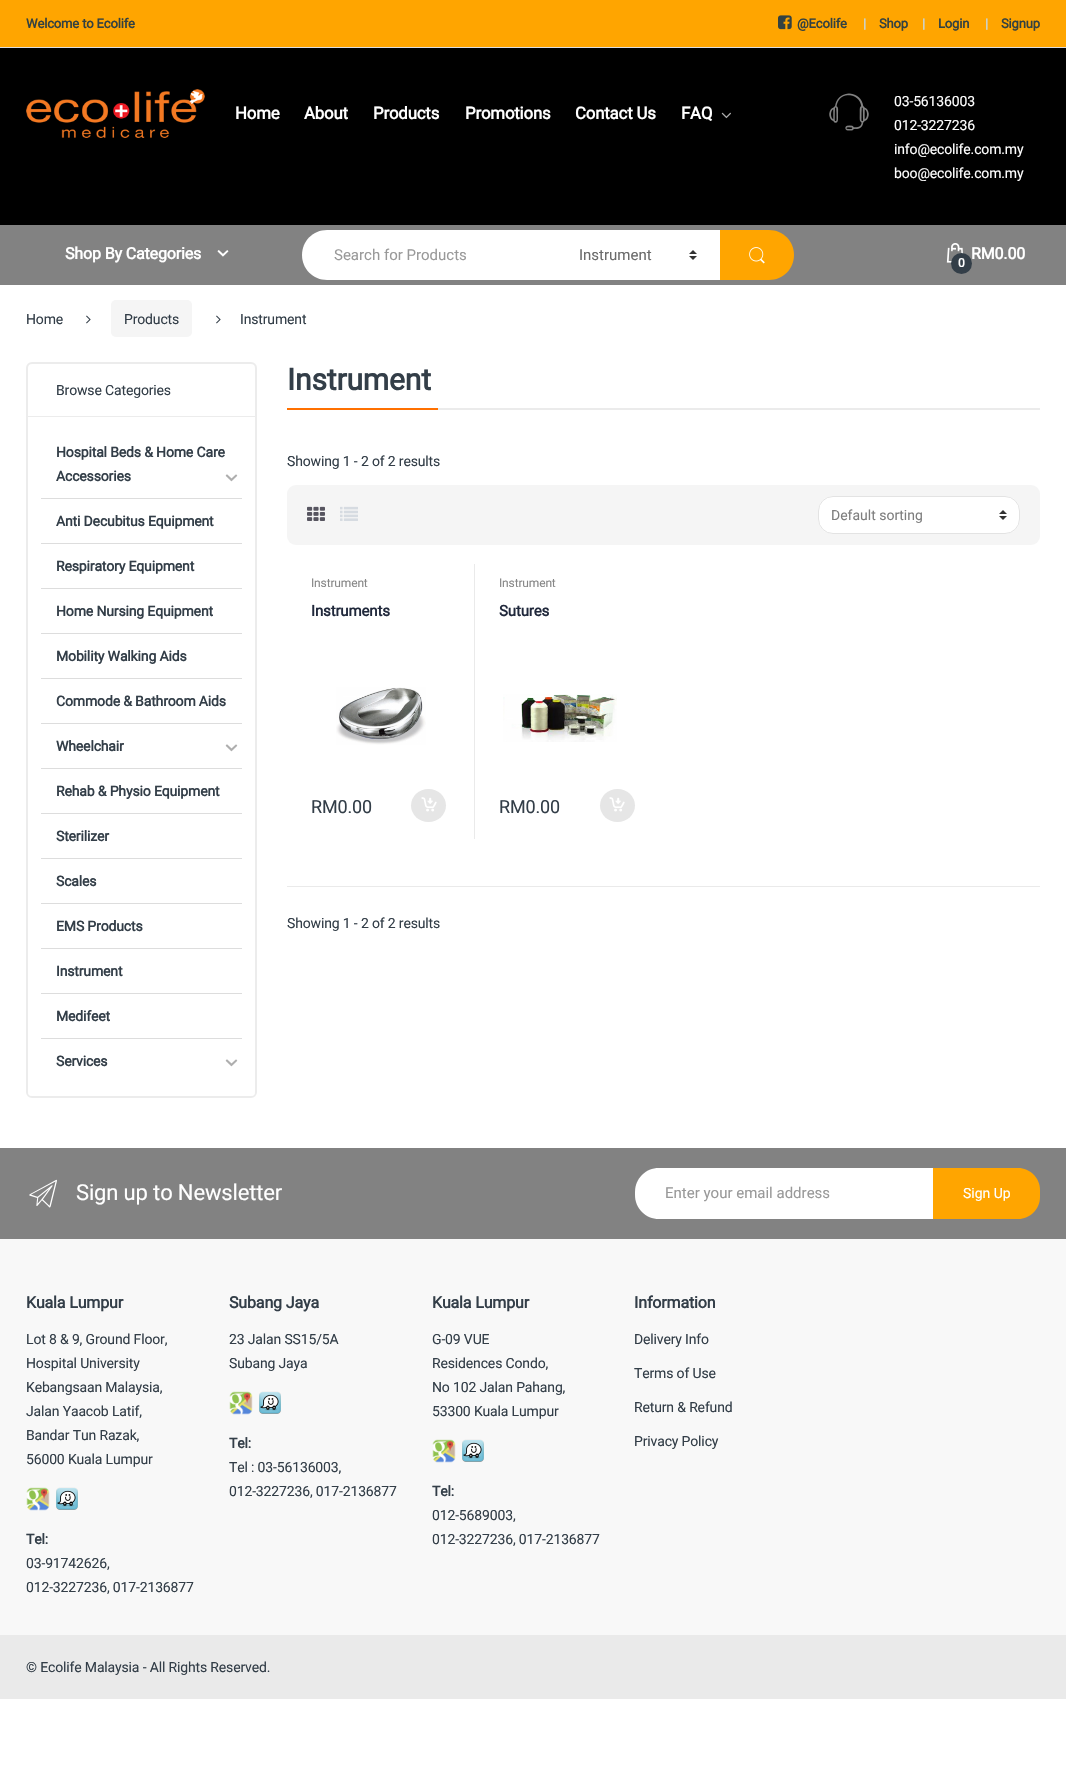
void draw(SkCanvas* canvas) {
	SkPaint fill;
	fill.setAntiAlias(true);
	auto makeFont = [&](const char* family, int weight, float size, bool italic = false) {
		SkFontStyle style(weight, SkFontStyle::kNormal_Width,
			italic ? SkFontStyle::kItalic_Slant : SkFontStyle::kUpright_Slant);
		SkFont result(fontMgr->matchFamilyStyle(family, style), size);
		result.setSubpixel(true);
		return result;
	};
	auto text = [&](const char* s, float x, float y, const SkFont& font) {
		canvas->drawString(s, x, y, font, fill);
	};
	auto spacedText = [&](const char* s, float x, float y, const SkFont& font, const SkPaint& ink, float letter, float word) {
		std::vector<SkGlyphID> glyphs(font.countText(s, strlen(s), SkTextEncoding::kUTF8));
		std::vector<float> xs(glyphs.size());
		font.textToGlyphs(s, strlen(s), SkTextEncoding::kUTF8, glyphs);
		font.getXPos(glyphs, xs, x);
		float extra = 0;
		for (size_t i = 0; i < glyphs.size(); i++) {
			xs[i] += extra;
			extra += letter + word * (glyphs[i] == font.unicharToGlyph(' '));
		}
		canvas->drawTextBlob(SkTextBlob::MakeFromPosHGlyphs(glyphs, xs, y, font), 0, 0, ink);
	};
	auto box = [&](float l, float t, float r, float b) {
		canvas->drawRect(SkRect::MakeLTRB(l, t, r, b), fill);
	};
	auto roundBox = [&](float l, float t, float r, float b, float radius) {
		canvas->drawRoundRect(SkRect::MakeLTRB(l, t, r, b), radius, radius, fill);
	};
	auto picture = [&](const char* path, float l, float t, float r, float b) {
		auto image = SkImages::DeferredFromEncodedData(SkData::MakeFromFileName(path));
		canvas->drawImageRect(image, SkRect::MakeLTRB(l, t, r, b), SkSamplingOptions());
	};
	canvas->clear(0xFFFFFFFF);
	fill.setColor(0xFFFFA500);
	box(0, 0, 1066, 47);
	fill.setColor(0xFFDDDDDD);
	box(0, 47, 1066, 48);
	picture("image0.png", 778, 15, 792, 30);
	fill.setColor(0xFF000000);
	box(0, 48, 1066, 225);
	picture("image1.png", 26, 89, 205, 138);
	picture("image2.png", 721, 112, 731, 119);
	picture("image3.png", 829, 93, 869, 131);
	fill.setColor(0xFF828282);
	box(0, 225, 1066, 285);
	picture("image4.png", 217, 250, 229, 257);
	fill.setColor(0xFFFFFFFF);
	canvas->drawPath(SkPathBuilder().moveTo(327, 230).lineTo(555, 230).lineTo(555, 280).lineTo(327, 280).cubicTo(313, 280, 302, 269, 302, 255).cubicTo(302, 241, 313, 230, 327, 230).close().detach(), fill);
	box(555, 230, 720, 280);
	picture("image5.png", 689, 250, 697, 260);
	fill.setColor(0xFFFFA500);
	canvas->drawPath(SkPathBuilder().moveTo(720, 230).lineTo(769, 230).cubicTo(783, 230, 794, 241, 794, 255).cubicTo(794, 269, 783, 280, 769, 280).lineTo(720, 280).close().detach(), fill);
	picture("image6.png", 749, 247, 765, 264);
	picture("image7.png", 946, 243, 963, 263);
	picture("image8.png", 86, 315, 91, 324);
	fill.setColor(0xFFF5F5F5);
	roundBox(111, 300, 192, 337, 5);
	picture("image8.png", 216, 315, 221, 324);
	fill.setStyle(SkPaint::kStroke_Style);
	fill.setStrokeWidth(2);
	fill.setColor(0xFFECECEC);
	canvas->drawRoundRect(SkRect::MakeLTRB(27, 363, 256, 1097), 5, 5, fill);
	fill.setStyle(SkPaint::kFill_Style);
	box(28, 416, 255, 417);
	fill.setColor(0xFFFFFFFF);
	roundBox(28, 417, 255, 1096, 4);
	picture("image9.png", 225, 474, 238, 482);
	fill.setColor(0xFFDDDDDD);
	box(41, 498, 242, 499);
	box(41, 543, 242, 544);
	box(41, 588, 242, 589);
	box(41, 633, 242, 634);
	box(41, 678, 242, 679);
	box(41, 723, 242, 724);
	picture("image9.png", 225, 744, 238, 752);
	box(41, 768, 242, 769);
	box(41, 813, 242, 814);
	box(41, 858, 242, 859);
	box(41, 903, 242, 904);
	box(41, 948, 242, 949);
	box(41, 993, 242, 994);
	box(41, 1038, 242, 1039);
	picture("image9.png", 225, 1059, 238, 1067);
	fill.setColor(0xFFEBEBEB);
	box(438, 408, 1040, 410);
	fill.setColor(0xFFFF7000);
	box(287, 408, 438, 410);
	fill.setColor(0xFFF5F5F5);
	roundBox(287, 485, 1040, 545, 9);
	picture("image10.png", 307, 506, 325, 521);
	picture("image11.png", 340, 506, 358, 521);
	fill.setColor(0xFFFFFFFF);
	roundBox(818, 496, 1020, 534, 15);
	picture("image5.png", 999, 510, 1007, 520);
	fill.setStyle(SkPaint::kStroke_Style);
	fill.setStrokeWidth(1);
	fill.setColor(0xFFE3E3E3);
	canvas->drawRoundRect(SkRect::MakeLTRB(818.5f, 496.5f, 1019.5f, 533.5f), 14.5f, 14.5f, fill);
	picture("image12.png", 336, 687, 426, 745);
	fill.setStyle(SkPaint::kFill_Style);
	fill.setColor(0xFFE6E6E6);
	canvas->drawOval(SkRect::MakeLTRB(411, 789, 446, 822), fill);
	picture("image13.png", 421, 797, 437, 812);
	fill.setColor(0xFFEAEAEA);
	box(474, 564, 475, 839);
	picture("image14.png", 503, 694, 617, 742);
	fill.setColor(0xFFE6E6E6);
	canvas->drawOval(SkRect::MakeLTRB(600, 789, 635, 822), fill);
	picture("image13.png", 609, 797, 625, 812);
	fill.setColor(0xFFEAEAEA);
	box(287, 886, 1040, 887);
	fill.setColor(0xFF828282);
	box(0, 1148, 1066, 1239);
	picture("image15.png", 29, 1179, 57, 1208);
	fill.setColor(0xFFFFFFFF);
	canvas->drawPath(SkPathBuilder().moveTo(659, 1168).lineTo(934, 1168).lineTo(934, 1219).lineTo(659, 1219).cubicTo(645.5f, 1219, 635, 1208.5f, 635, 1195).lineTo(635, 1192).cubicTo(635, 1178.5f, 645.5f, 1168, 659, 1168).close().detach(), fill);
	fill.setColor(0xFFFFA500);
	canvas->drawPath(SkPathBuilder().moveTo(933, 1168).lineTo(1018, 1168).cubicTo(1030, 1168, 1040, 1178, 1040, 1190).lineTo(1040, 1197).cubicTo(1040, 1209, 1030, 1219, 1018, 1219).lineTo(933, 1219).close().detach(), fill);
	fill.setColor(0xFFF8F8F8);
	box(0, 1239, 1066, 1635);
	picture("image16.png", 26, 1487, 50, 1511);
	picture("image17.png", 56, 1487, 78, 1510);
	picture("image16.png", 229, 1391, 253, 1415);
	picture("image17.png", 259, 1391, 281, 1414);
	picture("image16.png", 432, 1439, 456, 1463);
	picture("image17.png", 462, 1439, 484, 1462);
	fill.setColor(0xFFEAEAEA);
	box(0, 1635, 1066, 1699);
	auto font1 = makeFont("Roboto", 700, 13);
	fill.setColor(0xFF334141);
	spacedText("Welcome to Ecolife", 26, 28, font1, fill, -0.15f, 0);
	spacedText("@Ecolife", 797, 28, font1, fill, -0.15f, 0);
	fill.setColor(0xFFCAD5D5);
	spacedText("|", 863, 28, font1, fill, -0.15f, 0);
	fill.setColor(0xFF334141);
	spacedText("Shop", 879, 28, font1, fill, -0.15f, 0);
	fill.setColor(0xFFCAD5D5);
	spacedText("|", 922, 28, font1, fill, -0.15f, 0);
	fill.setColor(0xFF334141);
	spacedText("Login", 938, 28, font1, fill, -0.15f, 0);
	fill.setColor(0xFFCAD5D5);
	spacedText("|", 985, 28, font1, fill, -0.15f, 0);
	fill.setColor(0xFF334141);
	spacedText("Signup", 1001, 28, font1, fill, -0.15f, 0);
	auto font2 = makeFont("Roboto", 700, 16.75f);
	fill.setColor(0xFFFFFFFF);
	spacedText("Home", 235, 119, font2, fill, -0.15f, 0);
	spacedText("About", 304, 119, font2, fill, -0.15f, 0);
	spacedText("Products", 373, 119, font2, fill, -0.15f, 0);
	spacedText("Promotions", 465, 119, font2, fill, -0.15f, 0);
	spacedText("Contact Us", 575, 119, font2, fill, -0.15f, 0);
	spacedText("FAQ", 681, 119, font2, fill, -0.15f, 0);
	auto font3 = makeFont("Roboto", 400, 14);
	spacedText("03-56136003", 894, 106, font3, fill, -0.15f, 0);
	spacedText("012-3227236", 894, 130, font3, fill, -0.15f, 0);
	spacedText("info@ecolife.com.my", 894, 154, font3, fill, -0.15f, 0);
	spacedText("boo@ecolife.com.my", 894, 178, font3, fill, -0.15f, 0);
	auto font4 = makeFont("Roboto", 700, 16);
	spacedText("Shop By Categories", 65, 259, font4, fill, -0.15f, 0);
	auto font5 = makeFont("Roboto", 400, 15);
	fill.setColor(0xFF999999);
	text("Search for Products", 334, 260, font5);
	fill.setColor(0xFF6B6B6B);
	text("Instrument", 579, 260, font5);
	fill.setColor(0xFFFFFFFF);
	spacedText("RM0.00", 971, 259, font4, fill, -0.15f, 0);
	fill.setColor(0xFF333E48);
	canvas->drawCircle(961.5f, 263.5f, 10.5f, fill);
	auto font6 = makeFont("Roboto", 700, 12);
	fill.setColor(0xFFFFFFFF);
	spacedText("0", 958, 267, font6, fill, -0.15f, 0);
	fill.setColor(0xFF333E48);
	spacedText("Home", 26, 324, font3, fill, -0.15f, 0);
	spacedText("Products", 124, 324, font3, fill, -0.15f, 0);
	spacedText("Instrument", 240, 324, font3, fill, -0.15f, 0);
	spacedText("Browse Categories", 56, 395, font3, fill, -0.15f, 0);
	auto font7 = makeFont("Roboto", 700, 14);
	spacedText("Hospital Beds & Home Care", 56, 457, font7, fill, -0.15f, 0);
	spacedText("Accessories", 56, 481, font7, fill, -0.15f, 0);
	spacedText("Anti Decubitus Equipment", 56, 526, font7, fill, -0.15f, 0);
	spacedText("Respiratory Equipment", 56, 571, font7, fill, -0.15f, 0);
	spacedText("Home Nursing Equipment", 56, 616, font7, fill, -0.15f, 0);
	spacedText("Mobility Walking Aids", 56, 661, font7, fill, -0.15f, 0);
	spacedText("Commode & Bathroom Aids", 56, 706, font7, fill, -0.15f, 0);
	spacedText("Wheelchair", 56, 751, font7, fill, -0.15f, 0);
	spacedText("Rehab & Physio Equipment", 56, 796, font7, fill, -0.15f, 0);
	spacedText("Sterilizer", 56, 841, font7, fill, -0.15f, 0);
	spacedText("Scales", 56, 886, font7, fill, -0.15f, 0);
	spacedText("EMS Products", 56, 931, font7, fill, -0.15f, 0);
	spacedText("Instrument", 56, 976, font7, fill, -0.15f, 0);
	spacedText("Medifeet", 56, 1021, font7, fill, -0.15f, 0);
	spacedText("Services", 56, 1066, font7, fill, -0.15f, 0);
	auto font8 = makeFont("Roboto", 700, 30);
	spacedText("Instrument", 287, 390, font8, fill, -0.15f, 0);
	spacedText("Showing 1 - 2 of 2 results", 287, 466, font3, fill, -0.15f, 0);
	fill.setColor(0xFF7E7E7E);
	text("Default sorting", 831, 520, font3);
	auto font9 = makeFont("Roboto", 400, 12);
	fill.setColor(0xFF878787);
	spacedText("Instrument", 311, 587, font9, fill, -0.15f, 0);
	auto font10 = makeFont("Roboto", 700, 15);
	fill.setColor(0xFF21293C);
	spacedText("Instruments", 311, 616, font10, fill, -0.15f, 0);
	auto font11 = makeFont("Roboto", 400, 18);
	fill.setColor(0xFF333E48);
	spacedText("RM0.00", 311, 813, font11, fill, -0.15f, 0);
	fill.setColor(0xFF878787);
	spacedText("Instrument", 499, 587, font9, fill, -0.15f, 0);
	fill.setColor(0xFF21293C);
	spacedText("Sutures", 499, 616, font10, fill, -0.15f, 0);
	fill.setColor(0xFF333E48);
	spacedText("RM0.00", 499, 813, font11, fill, -0.15f, 0);
	spacedText("Showing 1 - 2 of 2 results", 287, 928, font3, fill, -0.15f, 0);
	auto font12 = makeFont("Roboto", 400, 22);
	fill.setColor(0xFFFFFFFF);
	spacedText("Sign up to Newsletter", 76, 1200, font12, fill, -0.15f, 0);
	fill.setColor(0xFF999999);
	text("Enter your email address", 665, 1198, font5);
	fill.setColor(0xFFFFFFFF);
	text("Sign Up", 963, 1198, font3);
	fill.setColor(0xFF333E48);
	spacedText("Kuala Lumpur", 26, 1308, font4, fill, -0.15f, 0);
	spacedText("Lot 8 & 9, Ground Floor,", 26, 1344, font3, fill, -0.15f, 0);
	spacedText("Hospital University", 26, 1368, font3, fill, -0.15f, 0);
	spacedText("Kebangsaan Malaysia,", 26, 1392, font3, fill, -0.15f, 0);
	spacedText("Jalan Yaacob Latif,", 26, 1416, font3, fill, -0.15f, 0);
	spacedText("Bandar Tun Razak,", 26, 1440, font3, fill, -0.15f, 0);
	spacedText("56000 Kuala Lumpur", 26, 1464, font3, fill, -0.15f, 0);
	spacedText("Tel:", 26, 1544, font7, fill, -0.15f, 0);
	spacedText("03-91742626,", 26, 1568, font3, fill, -0.15f, 0);
	spacedText("012-3227236, 017-2136877", 26, 1592, font3, fill, -0.15f, 0);
	spacedText("Subang Jaya", 229, 1308, font4, fill, -0.15f, 0);
	spacedText("23 Jalan SS15/5A", 229, 1344, font3, fill, -0.15f, 0);
	spacedText("Subang Jaya", 229, 1368, font3, fill, -0.15f, 0);
	spacedText("Tel:", 229, 1448, font7, fill, -0.15f, 0);
	spacedText("Tel : 03-56136003,", 229, 1472, font3, fill, -0.15f, 0);
	spacedText("012-3227236, 017-2136877", 229, 1496, font3, fill, -0.15f, 0);
	spacedText("Kuala Lumpur", 432, 1308, font4, fill, -0.15f, 0);
	spacedText("G-09 VUE", 432, 1344, font3, fill, -0.15f, 0);
	spacedText("Residences Condo,", 432, 1368, font3, fill, -0.15f, 0);
	spacedText("No 102 Jalan Pahang,", 432, 1392, font3, fill, -0.15f, 0);
	spacedText("53300 Kuala Lumpur", 432, 1416, font3, fill, -0.15f, 0);
	spacedText("Tel:", 432, 1496, font7, fill, -0.15f, 0);
	spacedText("012-5689003,", 432, 1520, font3, fill, -0.15f, 0);
	spacedText("012-3227236, 017-2136877", 432, 1544, font3, fill, -0.15f, 0);
	spacedText("Information", 634, 1308, font4, fill, -0.15f, 0);
	spacedText("Delivery Info", 634, 1344, font3, fill, -0.15f, 0);
	spacedText("Terms of Use", 634, 1378, font3, fill, -0.15f, 0);
	spacedText("Return & Refund", 634, 1412, font3, fill, -0.15f, 0);
	spacedText("Privacy Policy", 634, 1446, font3, fill, -0.15f, 0);
	spacedText("© Ecolife Malaysia - All Rights Reserved.", 26, 1672, font3, fill, -0.15f, 0);
}
